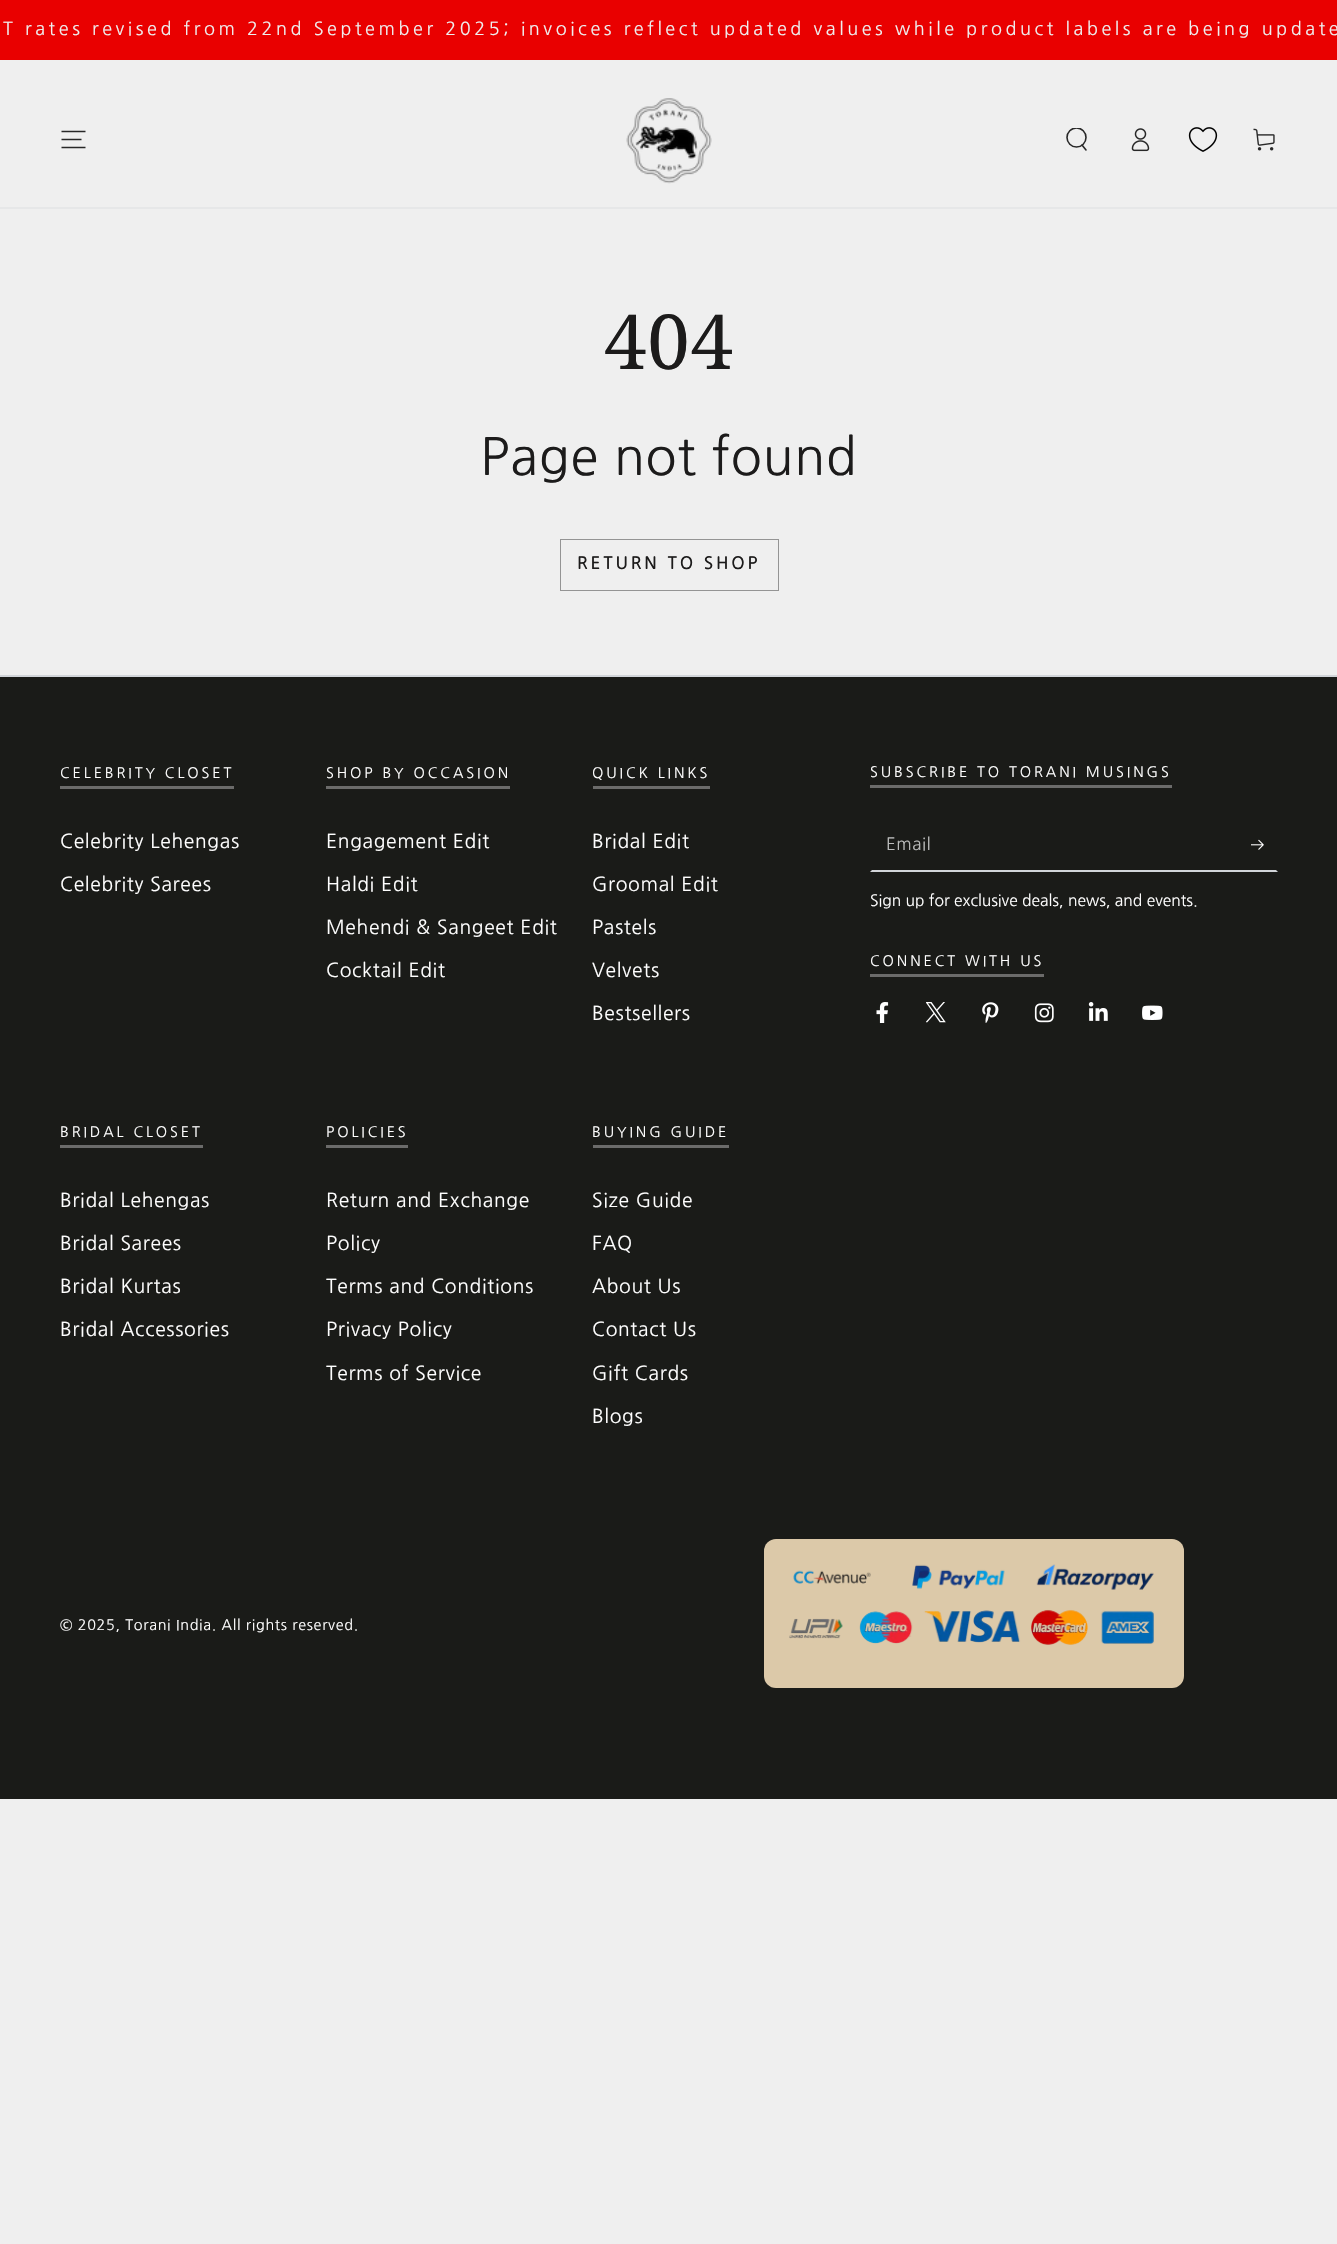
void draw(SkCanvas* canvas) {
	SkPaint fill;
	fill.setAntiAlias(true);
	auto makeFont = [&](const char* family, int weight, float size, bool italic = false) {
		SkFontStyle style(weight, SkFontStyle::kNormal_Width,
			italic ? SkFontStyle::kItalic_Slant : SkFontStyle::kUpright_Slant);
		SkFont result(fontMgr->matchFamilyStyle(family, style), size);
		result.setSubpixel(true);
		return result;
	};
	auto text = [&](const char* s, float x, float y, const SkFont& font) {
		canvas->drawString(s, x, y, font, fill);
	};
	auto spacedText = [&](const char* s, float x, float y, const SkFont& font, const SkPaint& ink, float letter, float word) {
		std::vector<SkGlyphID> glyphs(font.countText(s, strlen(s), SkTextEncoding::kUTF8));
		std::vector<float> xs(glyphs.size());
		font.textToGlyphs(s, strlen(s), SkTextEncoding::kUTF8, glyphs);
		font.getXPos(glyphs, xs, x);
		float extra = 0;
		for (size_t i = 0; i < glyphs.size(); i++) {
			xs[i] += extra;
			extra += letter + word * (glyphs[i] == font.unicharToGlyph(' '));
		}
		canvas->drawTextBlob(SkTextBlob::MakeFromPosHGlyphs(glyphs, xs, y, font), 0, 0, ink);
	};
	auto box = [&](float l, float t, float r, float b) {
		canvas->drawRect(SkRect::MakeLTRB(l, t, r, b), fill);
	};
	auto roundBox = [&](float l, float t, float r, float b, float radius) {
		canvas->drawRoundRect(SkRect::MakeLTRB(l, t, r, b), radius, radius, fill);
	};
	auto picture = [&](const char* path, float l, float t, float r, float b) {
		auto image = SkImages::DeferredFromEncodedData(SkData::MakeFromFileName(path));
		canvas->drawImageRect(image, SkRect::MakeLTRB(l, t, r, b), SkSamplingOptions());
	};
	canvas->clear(0xFFEFEFEF);
	fill.setColor(0xFFE90000);
	box(0, 0, 1337, 60);
	fill.setColor(0xFFE6E7E8);
	box(0, 207, 1337, 209);
	fill.setStyle(SkPaint::kStroke_Style);
	fill.setStrokeWidth(1.4f);
	fill.setColor(0xFF282828);
	canvas->drawPath(SkPathBuilder().moveTo(61.5f, 147.5f).lineTo(85.5f, 147.5f).moveTo(61.5f, 139.5f).lineTo(81.5f, 139.5f).moveTo(61.5f, 131.5f).lineTo(85.5f, 131.5f).detach(), fill);
	picture("image0.png", 626, 98, 712, 184);
	canvas->save();
	canvas->clipRect(SkRect::MakeLTRB(1065, 128, 1089, 152));
	fill.setStrokeWidth(1.6f);
	canvas->drawCircle(1076.5f, 137.5f, 9.5f, fill);
	canvas->restore();
	fill.setStrokeCap(SkPaint::kRound_Cap);
	canvas->drawPath(SkPathBuilder().moveTo(1082, 145).lineTo(1086, 150).detach(), fill);
	picture("image1.png", 1131, 128, 1150, 152);
	picture("image2.png", 1188, 127, 1218, 152);
	picture("image3.png", 1253, 128, 1275, 151);
	fill.setStrokeWidth(1);
	fill.setStrokeCap(SkPaint::kButt_Cap);
	fill.setColor(0xFF949494);
	canvas->drawRect(SkRect::MakeLTRB(560.5f, 539.5f, 778.5f, 590.5f), fill);
	fill.setStyle(SkPaint::kFill_Style);
	fill.setColor(0xFF1A1B18);
	box(0, 677, 1337, 1799);
	fill.setColor(0xFFD2D5D9);
	box(0, 675, 1337, 677);
	fill.setColor(0xFF6B6B6A);
	box(60, 786, 234, 789);
	box(326, 786, 510, 789);
	box(593, 786, 710, 789);
	box(60, 1145, 203, 1148);
	box(326, 1145, 408, 1148);
	box(593, 1145, 729, 1148);
	box(870, 785, 1172, 788);
	fill.setColor(0xFFD2D5D9);
	canvas->drawPath(SkPathBuilder().moveTo(1278, 872).lineTo(870, 872).lineTo(872, 870).lineTo(1276, 870).close().detach(), fill);
	picture("image4.png", 1251, 839, 1264, 850);
	fill.setColor(0xFF6B6B6A);
	box(870, 974, 1044, 977);
	picture("image5.png", 876, 1002, 889, 1023);
	picture("image6.png", 926, 1002, 946, 1023);
	picture("image7.png", 982, 1002, 999, 1023);
	picture("image8.png", 1034, 1003, 1054, 1023);
	picture("image9.png", 1088, 1002, 1108, 1021);
	picture("image10.png", 1142, 1005, 1163, 1020);
	fill.setColor(0xFFDCC9A9);
	roundBox(764, 1539, 1184, 1688, 12);
	picture("image11.png", 789, 1564, 1154, 1645);
	auto font1 = makeFont("NanumGothic", 400, 18);
	fill.setColor(0xFFEFEFEF);
	spacedText("T rates revised from 22nd September 2025; invoices reflect updated values while product labels are being update", 3, 35, font1, fill, 3.6f, 0);
	auto font2 = makeFont("Noto Serif", 400, 76);
	fill.setColor(0xFF1C1B1B);
	spacedText("404", 604, 369, font2, fill, 0.75f, 0);
	auto font3 = makeFont("NanumGothic", 400, 51);
	spacedText("Page not found", 480, 475, font3, fill, 0.75f, 0);
	auto font4 = makeFont("NanumGothic", 700, 16.5f);
	spacedText("RETURN TO SHOP", 577, 569, font4, fill, 3.25f, 0);
	auto font5 = makeFont("NanumGothic", 400, 14.4f);
	fill.setColor(0xFFFFFFFF);
	spacedText("CELEBRITY CLOSET", 60, 778, font5, fill, 2.9f, 0);
	auto font6 = makeFont("NanumGothic", 400, 19.25f);
	spacedText("Celebrity Lehengas", 60, 848, font6, fill, 0.7f, 0);
	spacedText("Celebrity Sarees", 60, 891, font6, fill, 0.7f, 0);
	spacedText("SHOP BY OCCASION", 326, 778, font5, fill, 2.9f, 0);
	spacedText("Engagement Edit", 326, 848, font6, fill, 0.7f, 0);
	spacedText("Haldi Edit", 326, 891, font6, fill, 0.7f, 0);
	spacedText("Mehendi & Sangeet Edit", 326, 934, font6, fill, 0.7f, 0);
	spacedText("Cocktail Edit", 326, 977, font6, fill, 0.7f, 0);
	spacedText("QUICK LINKS", 592, 778, font5, fill, 2.9f, 0);
	spacedText("Bridal Edit", 592, 848, font6, fill, 0.7f, 0);
	spacedText("Groomal Edit", 592, 891, font6, fill, 0.7f, 0);
	spacedText("Pastels", 592, 934, font6, fill, 0.7f, 0);
	spacedText("Velvets", 592, 977, font6, fill, 0.7f, 0);
	spacedText("Bestsellers", 592, 1020, font6, fill, 0.7f, 0);
	spacedText("BRIDAL CLOSET", 60, 1137, font5, fill, 2.9f, 0);
	spacedText("Bridal Lehengas", 60, 1207, font6, fill, 0.7f, 0);
	spacedText("Bridal Sarees", 60, 1250, font6, fill, 0.7f, 0);
	spacedText("Bridal Kurtas", 60, 1293, font6, fill, 0.7f, 0);
	spacedText("Bridal Accessories", 60, 1336, font6, fill, 0.7f, 0);
	spacedText("POLICIES", 326, 1137, font5, fill, 2.9f, 0);
	spacedText("Return and Exchange", 326, 1207, font6, fill, 0.7f, 0);
	spacedText("Policy", 326, 1250, font6, fill, 0.7f, 0);
	spacedText("Terms and Conditions", 326, 1293, font6, fill, 0.7f, 0);
	spacedText("Privacy Policy", 326, 1336, font6, fill, 0.7f, 0);
	spacedText("Terms of Service", 326, 1380, font6, fill, 0.7f, 0);
	spacedText("BUYING GUIDE", 592, 1137, font5, fill, 2.9f, 0);
	spacedText("Size Guide", 592, 1207, font6, fill, 0.7f, 0);
	spacedText("FAQ", 592, 1250, font6, fill, 0.7f, 0);
	spacedText("About Us", 592, 1293, font6, fill, 0.7f, 0);
	spacedText("Contact Us", 592, 1336, font6, fill, 0.7f, 0);
	spacedText("Gift Cards", 592, 1380, font6, fill, 0.7f, 0);
	spacedText("Blogs", 592, 1423, font6, fill, 0.7f, 0);
	spacedText("SUBSCRIBE TO TORANI MUSINGS", 870, 777, font5, fill, 2.9f, 0);
	auto font7 = makeFont("NanumGothic", 400, 17);
	fill.setColor(0xFFBABBBA);
	spacedText("Email", 886, 850, font7, fill, 0.5f, 0);
	auto font8 = makeFont("NanumGothic", 400, 15.6f);
	fill.setColor(0xFFFFFFFF);
	text("Sign up for exclusive deals, news, and events.", 870, 906, font8);
	spacedText("CONNECT WITH US", 870, 966, font5, fill, 2.9f, 0);
	spacedText("© 2025, Torani India. All rights reserved.", 60, 1630, font5, fill, 0.7f, 0);
}
